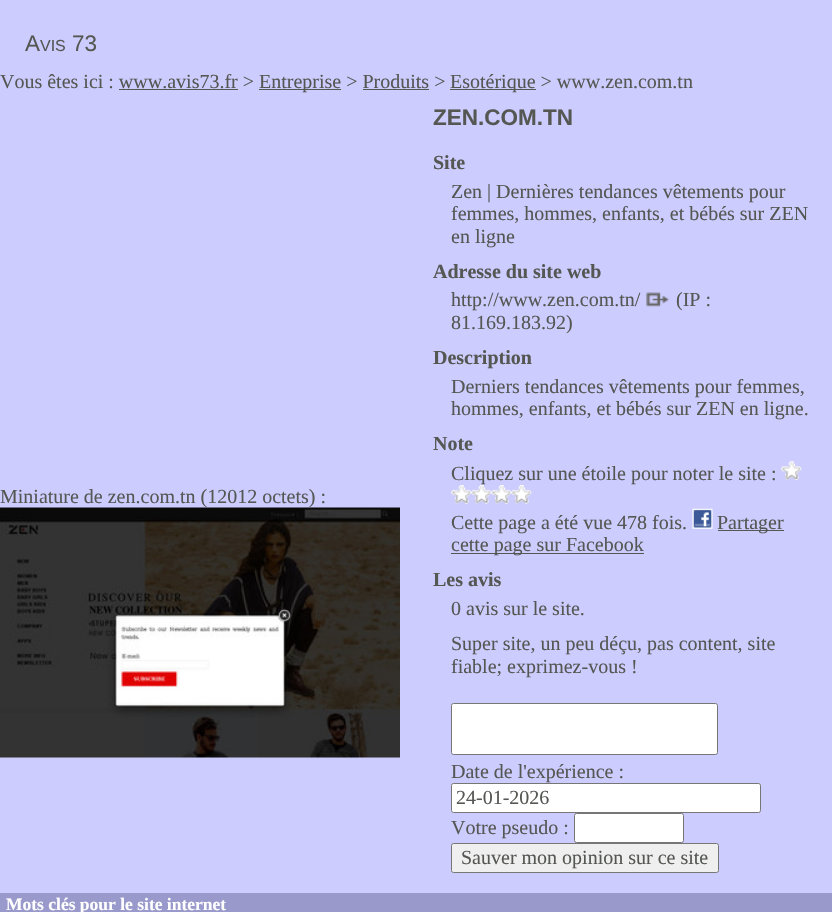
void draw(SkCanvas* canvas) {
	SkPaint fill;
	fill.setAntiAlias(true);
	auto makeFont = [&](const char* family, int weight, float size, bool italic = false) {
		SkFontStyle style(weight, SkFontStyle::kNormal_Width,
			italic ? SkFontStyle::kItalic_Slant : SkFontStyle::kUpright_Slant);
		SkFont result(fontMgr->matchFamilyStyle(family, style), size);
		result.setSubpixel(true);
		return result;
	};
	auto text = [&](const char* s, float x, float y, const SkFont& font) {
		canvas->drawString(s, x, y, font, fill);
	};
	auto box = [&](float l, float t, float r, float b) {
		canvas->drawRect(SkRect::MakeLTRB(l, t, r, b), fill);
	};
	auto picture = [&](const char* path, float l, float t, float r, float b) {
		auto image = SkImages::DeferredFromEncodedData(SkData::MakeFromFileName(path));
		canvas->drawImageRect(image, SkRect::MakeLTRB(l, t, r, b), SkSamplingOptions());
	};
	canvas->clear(0xFFCCCCFF);
	fill.setColor(0xFF555753);
	box(259, 89, 341, 90);
	box(450, 89, 536, 90);
	box(119, 89, 238, 90);
	box(363, 89, 429, 90);
	picture("image1.png", 646, 292, 669, 307);
	picture("image2.png", 781, 461, 802, 480);
	picture("image3.png", 451, 485, 472, 504);
	picture("image4.png", 471, 485, 492, 504);
	picture("image4.png", 491, 485, 512, 504);
	picture("image4.png", 511, 485, 532, 504);
	picture("image5.png", 692, 508, 713, 529);
	box(718, 530, 784, 531);
	box(451, 553, 644, 554);
	fill.setColor(0xFFFFFFFF);
	canvas->drawRoundRect(SkRect::MakeLTRB(451.5f, 703.5f, 717.5f, 754.5f), 2, 2, fill);
	fill.setStyle(SkPaint::kStroke_Style);
	fill.setStrokeWidth(1);
	fill.setColor(0xFF767676);
	canvas->drawRoundRect(SkRect::MakeLTRB(451.5f, 703.5f, 717.5f, 754.5f), 2, 2, fill);
	fill.setStyle(SkPaint::kFill_Style);
	fill.setColor(0xFFFFFFFF);
	canvas->drawRoundRect(SkRect::MakeLTRB(451.5f, 783.5f, 760.5f, 812.5f), 2, 2, fill);
	fill.setStyle(SkPaint::kStroke_Style);
	fill.setColor(0xFF767676);
	canvas->drawRoundRect(SkRect::MakeLTRB(451.5f, 783.5f, 760.5f, 812.5f), 2, 2, fill);
	fill.setStyle(SkPaint::kFill_Style);
	fill.setColor(0xFFFFFFFF);
	canvas->drawRoundRect(SkRect::MakeLTRB(574.5f, 813.5f, 683.5f, 842.5f), 2, 2, fill);
	fill.setStyle(SkPaint::kStroke_Style);
	fill.setColor(0xFF767676);
	canvas->drawRoundRect(SkRect::MakeLTRB(574.5f, 813.5f, 683.5f, 842.5f), 2, 2, fill);
	fill.setStyle(SkPaint::kFill_Style);
	fill.setColor(0xFFEFEFEF);
	canvas->drawRoundRect(SkRect::MakeLTRB(451.5f, 843.5f, 718.5f, 872.5f), 2, 2, fill);
	fill.setStyle(SkPaint::kStroke_Style);
	fill.setColor(0xFF767676);
	canvas->drawRoundRect(SkRect::MakeLTRB(451.5f, 843.5f, 718.5f, 872.5f), 2, 2, fill);
	fill.setStyle(SkPaint::kFill_Style);
	fill.setColor(0xFF9999CC);
	box(0, 893, 832, 912);
	auto font1 = makeFont("Liberation Sans", 400, 22.5f);
	fill.setColor(0xFF555753);
	text("A", 25, 51, font1);
	auto font2 = makeFont("Liberation Sans", 400, 16);
	text("VIS", 40, 51, font2);
	text("73", 72, 51, font1);
	auto font3 = makeFont("Liberation Serif", 400, 20);
	text("Vous êtes ici : www.avis73.fr >", 0, 88, font3);
	text("Entreprise > Produits >", 259, 88, font3);
	text("Esotérique > www.zen.com.tn", 450, 88, font3);
	text("Miniature de zen.com.tn (12012 octets) :", 0, 503, font3);
	picture("image0.png", 0, 507, 400, 758);
	auto font4 = makeFont("Liberation Sans", 700, 22.5f);
	text("ZEN.COM.TN", 433, 125, font4);
	auto font5 = makeFont("Liberation Serif", 700, 20);
	text("Site", 433, 169, font5);
	text("Zen | Dernières tendances vêtements pour", 451, 198, font3);
	text("femmes, hommes, enfants, et bébés sur ZEN", 451, 220, font3);
	text("en ligne", 451, 243, font3);
	text("Adresse du site web", 433, 278, font5);
	text("http://www.zen.com.tn/", 451, 306, font3);
	text("(IP :", 676, 306, font3);
	text("81.169.183.92)", 451, 329, font3);
	text("Description", 433, 364, font5);
	text("Derniers tendances vêtements pour femmes,", 451, 393, font3);
	text("hommes, enfants, et bébés sur ZEN en ligne.", 451, 415, font3);
	text("Note", 433, 450, font5);
	text("Cliquez sur une étoile pour noter le site :", 451, 480, font3);
	text("Cette page a été vue 478 fois.", 451, 529, font3);
	text("Partager", 717, 529, font3);
	text("cette page sur Facebook", 451, 551, font3);
	text("Les avis", 433, 586, font5);
	text("0 avis sur le site.", 451, 615, font3);
	text("Super site, un peu déçu, pas content, site", 451, 650, font3);
	text("fiable; exprimez-vous !", 451, 673, font3);
	text("Date de l'expérience :", 451, 778, font3);
	text("24-01-2026", 456, 804, font3);
	text("Votre pseudo :", 451, 834, font3);
	text("Sauver mon opinion sur ce site", 461, 864, font3);
	auto font6 = makeFont("Liberation Serif", 700, 17.5f);
	fill.setColor(0xFFFFFFFF);
	text("Mots clés pour le site internet", 6, 910, font6);
}
